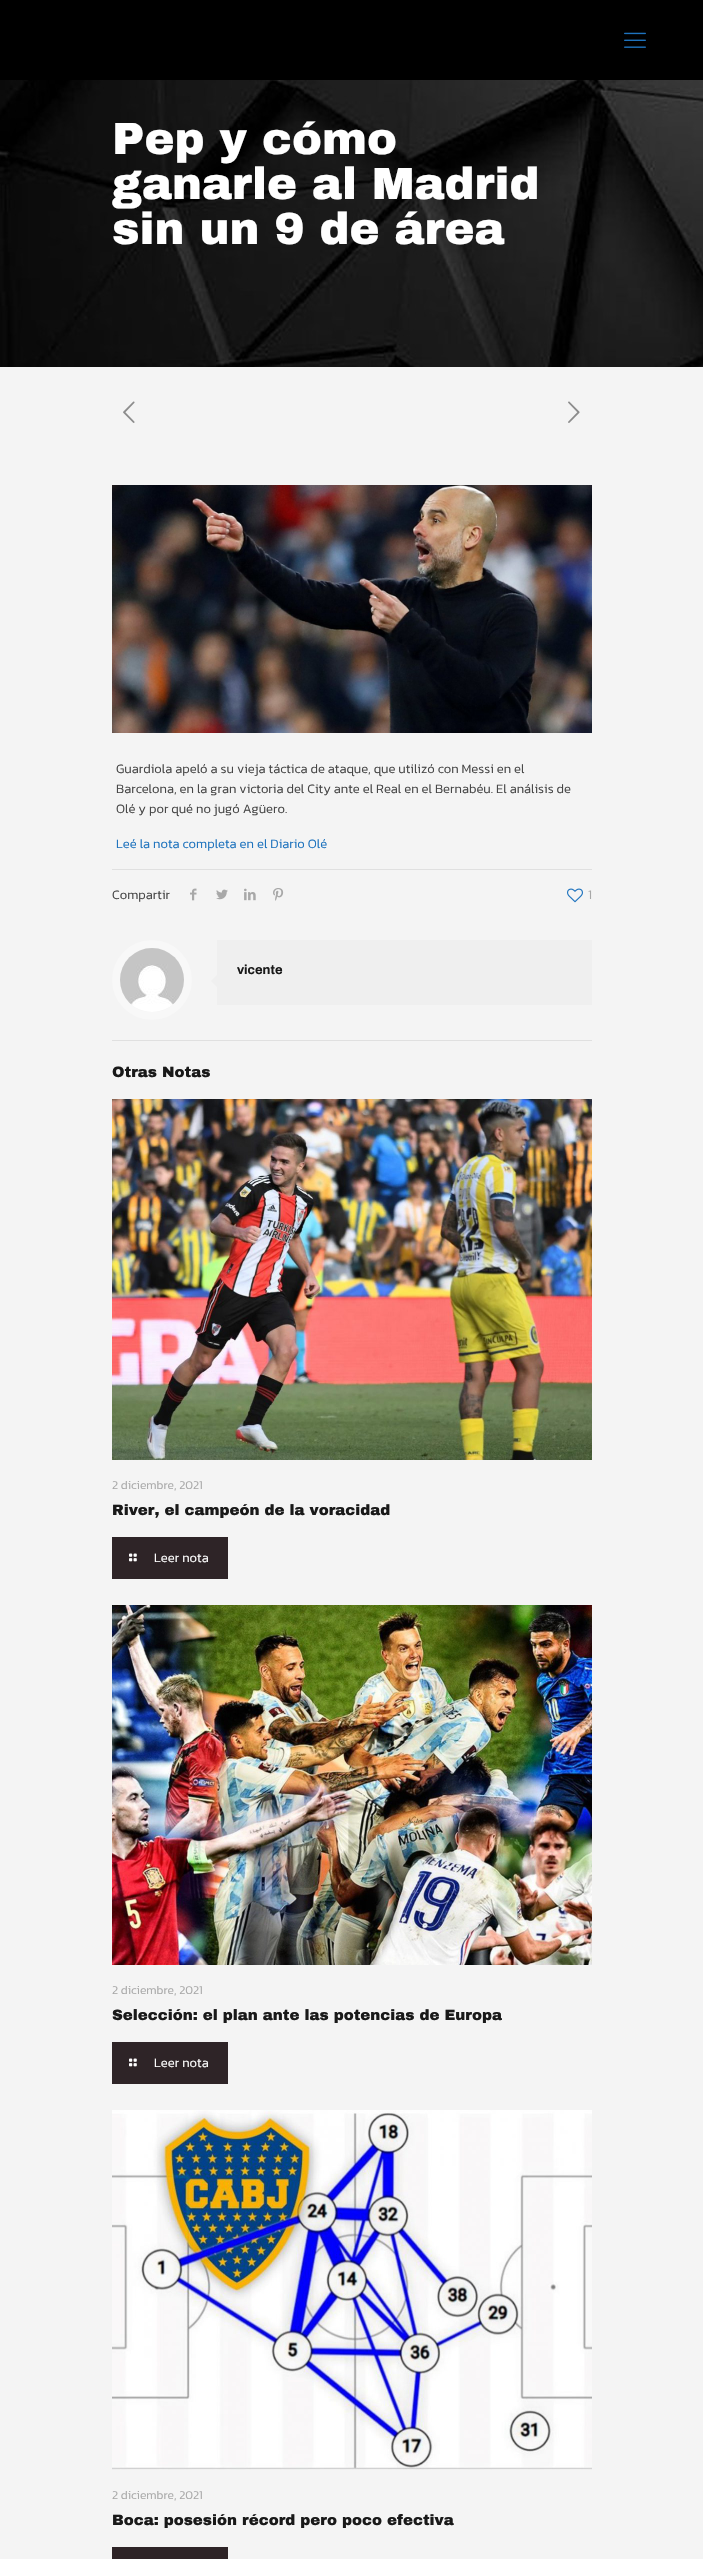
void draw(SkCanvas* canvas) {
	SkPaint fill;
	fill.setAntiAlias(true);
	auto makeFont = [&](const char* family, int weight, float size, bool italic = false) {
		SkFontStyle style(weight, SkFontStyle::kNormal_Width,
			italic ? SkFontStyle::kItalic_Slant : SkFontStyle::kUpright_Slant);
		SkFont result(fontMgr->matchFamilyStyle(family, style), size);
		result.setSubpixel(true);
		return result;
	};
	auto text = [&](const char* s, float x, float y, const SkFont& font) {
		canvas->drawString(s, x, y, font, fill);
	};
	auto box = [&](float l, float t, float r, float b) {
		canvas->drawRect(SkRect::MakeLTRB(l, t, r, b), fill);
	};
	auto picture = [&](const char* path, float l, float t, float r, float b) {
		auto image = SkImages::DeferredFromEncodedData(SkData::MakeFromFileName(path));
		canvas->drawImageRect(image, SkRect::MakeLTRB(l, t, r, b), SkSamplingOptions());
	};
	canvas->clear(0xFFF4F4F4);
	fill.setColor(0xFF000000);
	box(0, 0, 703, 80);
	picture("image0.png", 624, 32, 646, 48);
	picture("image1.png", 0, 80, 703, 367);
	picture("image2.png", 123, 401, 135, 423);
	picture("image3.png", 568, 401, 580, 423);
	picture("image4.png", 112, 485, 592, 733);
	fill.setColor(0xFFE0E0E0);
	box(112, 869, 592, 870);
	picture("image5.png", 190, 888, 197, 901);
	picture("image6.png", 216, 889, 228, 900);
	picture("image7.png", 244, 888, 256, 901);
	picture("image8.png", 273, 888, 284, 901);
	picture("image9.png", 567, 888, 583, 903);
	fill.setStyle(SkPaint::kStroke_Style);
	fill.setStrokeWidth(8);
	fill.setColor(0xFFF8F8F8);
	canvas->drawCircle(152, 980, 36, fill);
	picture("image10.png", 120, 948, 184, 1012);
	fill.setStyle(SkPaint::kFill_Style);
	fill.setColor(0xFFEFEFEF);
	box(217, 940, 592, 1005);
	canvas->drawPath(SkPathBuilder().moveTo(217, 975).lineTo(217, 987).lineTo(211, 981).close().detach(), fill);
	fill.setColor(0xFFE0E0E0);
	box(112, 1040, 592, 1041);
	picture("image11.png", 112, 1099, 592, 1460);
	fill.setColor(0xFF2E2427);
	box(112, 1537, 228, 1579);
	picture("image12.png", 129, 1553, 137, 1562);
	picture("image13.png", 112, 1605, 592, 1965);
	box(112, 2042, 228, 2084);
	picture("image12.png", 129, 2058, 137, 2067);
	picture("image14.png", 112, 2110, 592, 2470);
	box(112, 2547, 228, 2559);
	auto font1 = makeFont("Archivo Black", 900, 45);
	fill.setColor(0xFFFFFFFF);
	text("Pep y cómo", 112, 154, font1);
	text("ganarle al Madrid", 112, 199, font1);
	text("sin un 9 de área", 112, 244, font1);
	auto font2 = makeFont("Kanit", 300, 13);
	fill.setColor(0xFF464646);
	text("Guardiola apeló a su vieja táctica de ataque, que utilizó con Messi en el", 116, 773, font2);
	text("Barcelona, en la gran victoria del City ante el Real en el Bernabéu. El análisis de", 116, 793, font2);
	text("Olé y por qué no jugó Agüero.", 116, 813, font2);
	fill.setColor(0xFF1E73BE);
	text("Leé la nota completa en el Diario Olé", 116, 848, font2);
	fill.setColor(0xFF464646);
	text("Compartir", 112, 899, font2);
	fill.setColor(0xFFA8A8A8);
	text("1", 588, 899, font2);
	auto font3 = makeFont("Archivo", 700, 13);
	fill.setColor(0xFF191919);
	text("vicente", 237, 974, font3);
	auto font4 = makeFont("Archivo Black", 900, 15);
	text("Otras Notas", 112, 1077, font4);
	auto font5 = makeFont("Kanit", 300, 12);
	fill.setColor(0xFFA8A8A8);
	text("2 diciembre, 2021", 112, 1489, font5);
	fill.setColor(0xFF191919);
	text("River, el campeón de la voracidad", 112, 1515, font4);
	fill.setColor(0xFFFFFFFF);
	text("Leer nota", 154, 1562, font2);
	fill.setColor(0xFFA8A8A8);
	text("2 diciembre, 2021", 112, 1994, font5);
	fill.setColor(0xFF191919);
	text("Selección: el plan ante las potencias de Europa", 112, 2020, font4);
	fill.setColor(0xFFFFFFFF);
	text("Leer nota", 154, 2067, font2);
	fill.setColor(0xFFA8A8A8);
	text("2 diciembre, 2021", 112, 2499, font5);
	fill.setColor(0xFF191919);
	text("Boca: posesión récord pero poco efectiva", 112, 2525, font4);
}
